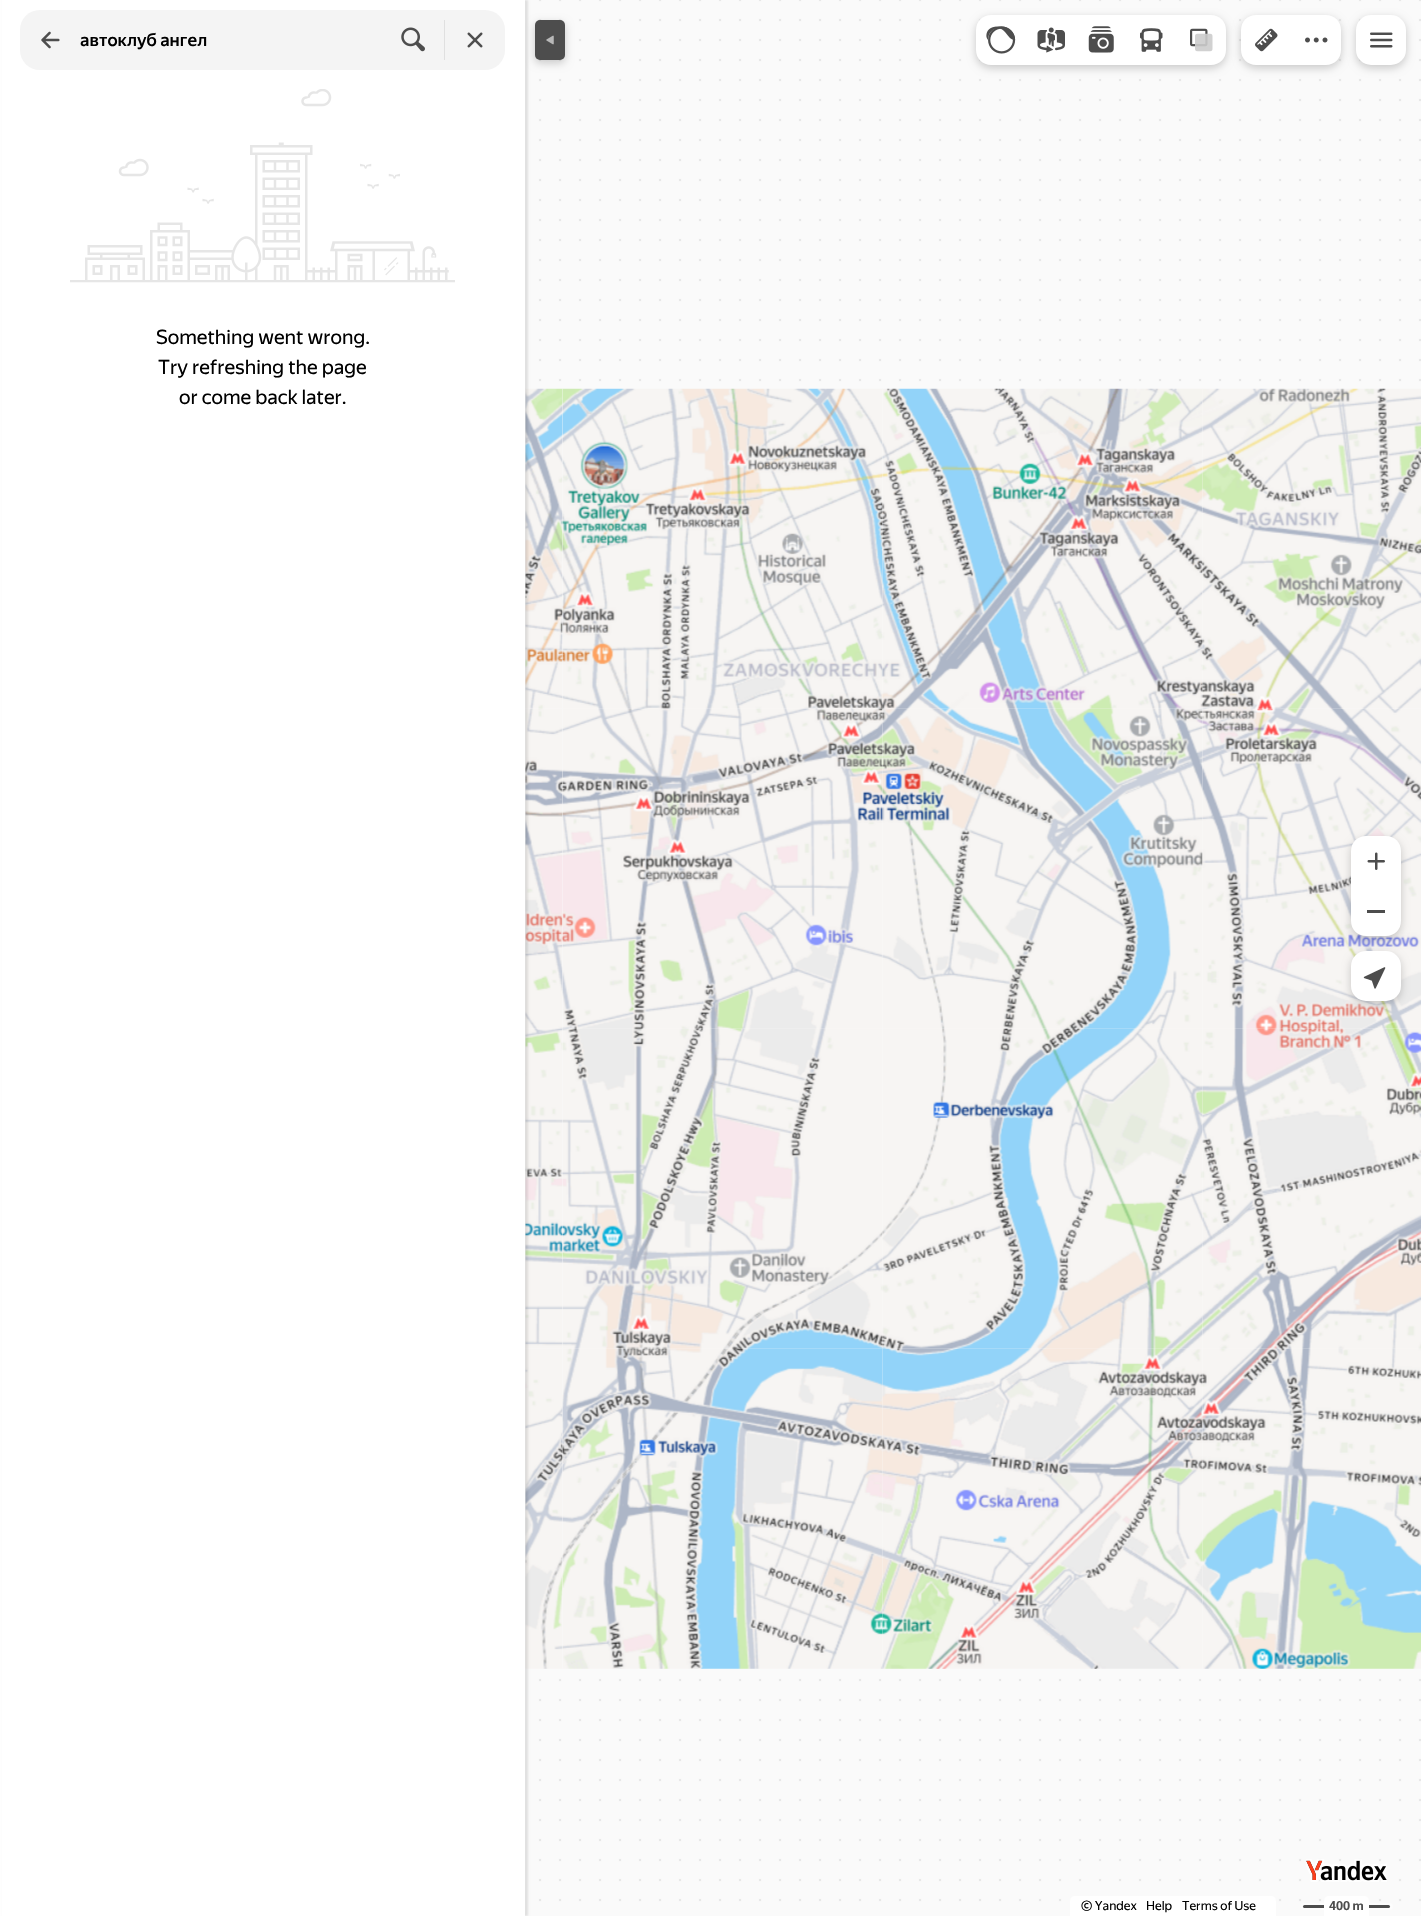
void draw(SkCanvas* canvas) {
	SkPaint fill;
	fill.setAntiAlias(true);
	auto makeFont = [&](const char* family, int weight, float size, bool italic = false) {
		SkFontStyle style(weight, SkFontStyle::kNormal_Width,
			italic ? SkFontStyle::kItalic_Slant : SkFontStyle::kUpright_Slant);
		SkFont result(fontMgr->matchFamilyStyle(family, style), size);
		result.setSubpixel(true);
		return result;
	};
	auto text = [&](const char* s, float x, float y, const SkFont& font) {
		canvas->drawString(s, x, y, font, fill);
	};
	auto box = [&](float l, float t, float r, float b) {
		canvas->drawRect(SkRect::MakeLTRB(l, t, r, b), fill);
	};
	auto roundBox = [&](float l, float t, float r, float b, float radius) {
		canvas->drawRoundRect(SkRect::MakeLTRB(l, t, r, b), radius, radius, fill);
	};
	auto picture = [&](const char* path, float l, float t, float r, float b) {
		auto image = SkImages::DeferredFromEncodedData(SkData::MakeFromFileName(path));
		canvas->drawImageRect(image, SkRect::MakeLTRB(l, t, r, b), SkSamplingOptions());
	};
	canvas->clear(0xFFFFFFFF);
	picture("image0.png", 525, 0, 1421, 1916);
	picture("image18.png", 562, 388, 883, 709);
	picture("image19.png", 882, 388, 1203, 709);
	picture("image22.png", 562, 708, 883, 1029);
	picture("image17.png", 525, 388, 563, 709);
	picture("image23.png", 882, 708, 1203, 1029);
	picture("image26.png", 562, 1028, 883, 1349);
	picture("image21.png", 525, 709, 563, 1029);
	picture("image27.png", 882, 1028, 1203, 1349);
	picture("image30.png", 562, 1348, 883, 1669);
	picture("image25.png", 525, 1028, 563, 1349);
	picture("image29.png", 525, 1349, 563, 1669);
	fill.setColor(0x1A000000);
	fill.setMaskFilter(SkMaskFilter::MakeBlur(kNormal_SkBlurStyle, 1));
	canvas->drawRect(SkRect::MakeLTRB(3, 0, 528, 1916), fill);
	fill.setMaskFilter(nullptr);
	fill.setColor(0x33000000);
	fill.setMaskFilter(SkMaskFilter::MakeBlur(kNormal_SkBlurStyle, 4));
	canvas->drawRoundRect(SkRect::MakeLTRB(535, 23, 565, 63), 5, 5, fill);
	fill.setMaskFilter(nullptr);
	fill.setColor(0xFFFFFFFF);
	box(2, 0, 525, 1916);
	fill.setColor(0xFFF4F4F4);
	roundBox(20, 10, 505, 70, 20);
	picture("image1.png", 41, 31, 60, 49);
	picture("image2.png", 401, 27, 425, 52);
	fill.setColor(0xFFE0E0E0);
	box(444, 20, 445, 60);
	picture("image3.png", 467, 32, 483, 48);
	fill.setColor(0x33000000);
	fill.setMaskFilter(SkMaskFilter::MakeBlur(kNormal_SkBlurStyle, 4));
	canvas->drawRoundRect(SkRect::MakeLTRB(976, 18, 1226, 68), 15, 15, fill);
	fill.setMaskFilter(nullptr);
	fill.setColor(0xFFFFFFFF);
	canvas->drawPath(SkPathBuilder().moveTo(991, 15).lineTo(1026, 15).lineTo(1026, 65).lineTo(991, 65).cubicTo(982.5f, 65, 976, 58.5f, 976, 50).lineTo(976, 30).cubicTo(976, 21.5f, 982.5f, 15, 991, 15).close().detach(), fill);
	picture("image4.png", 986, 26, 1016, 54);
	box(1026, 15, 1176, 65);
	picture("image5.png", 1037, 27, 1065, 53);
	canvas->drawPath(SkPathBuilder().moveTo(1176, 15).lineTo(1211, 15).cubicTo(1219.5f, 15, 1226, 21.5f, 1226, 30).lineTo(1226, 50).cubicTo(1226, 58.5f, 1219.5f, 65, 1211, 65).lineTo(1176, 65).close().detach(), fill);
	picture("image6.png", 1190, 28, 1213, 52);
	picture("image7.png", 1088, 26, 1114, 53);
	picture("image8.png", 1140, 28, 1163, 52);
	fill.setColor(0x33000000);
	fill.setMaskFilter(SkMaskFilter::MakeBlur(kNormal_SkBlurStyle, 4));
	canvas->drawRoundRect(SkRect::MakeLTRB(1241, 18, 1341, 68), 15, 15, fill);
	fill.setMaskFilter(nullptr);
	fill.setColor(0xFFFFFFFF);
	canvas->drawPath(SkPathBuilder().moveTo(1256, 15).lineTo(1291, 15).lineTo(1291, 65).lineTo(1256, 65).cubicTo(1247.5f, 65, 1241, 58.5f, 1241, 50).lineTo(1241, 30).cubicTo(1241, 21.5f, 1247.5f, 15, 1256, 15).close().detach(), fill);
	picture("image9.png", 1255, 28, 1278, 52);
	canvas->drawPath(SkPathBuilder().moveTo(1291, 15).lineTo(1326, 15).cubicTo(1334.5f, 15, 1341, 21.5f, 1341, 30).lineTo(1341, 50).cubicTo(1341, 58.5f, 1334.5f, 65, 1326, 65).lineTo(1291, 65).close().detach(), fill);
	picture("image10.png", 1305, 37, 1328, 43);
	fill.setColor(0x33000000);
	fill.setMaskFilter(SkMaskFilter::MakeBlur(kNormal_SkBlurStyle, 4));
	canvas->drawRoundRect(SkRect::MakeLTRB(1356, 18, 1406, 68), 15, 15, fill);
	fill.setMaskFilter(nullptr);
	fill.setColor(0xFFFFFFFF);
	roundBox(1356, 15, 1406, 65, 15);
	picture("image11.png", 1370, 32, 1393, 48);
	picture("image24.png", 1202, 708, 1421, 1029);
	fill.setColor(0x33000000);
	fill.setMaskFilter(SkMaskFilter::MakeBlur(kNormal_SkBlurStyle, 4));
	canvas->drawRoundRect(SkRect::MakeLTRB(1351, 839, 1401, 939), 15, 15, fill);
	fill.setMaskFilter(nullptr);
	fill.setColor(0xFFFFFFFF);
	canvas->drawPath(SkPathBuilder().moveTo(1366, 836).lineTo(1386, 836).cubicTo(1394.5f, 836, 1401, 842.5f, 1401, 851).lineTo(1401, 886).lineTo(1351, 886).lineTo(1351, 851).cubicTo(1351, 842.5f, 1357.5f, 836, 1366, 836).close().detach(), fill);
	picture("image12.png", 1367, 852, 1385, 870);
	canvas->drawPath(SkPathBuilder().moveTo(1351, 886).lineTo(1401, 886).lineTo(1401, 921).cubicTo(1401, 929.5f, 1394.5f, 936, 1386, 936).lineTo(1366, 936).cubicTo(1357.5f, 936, 1351, 929.5f, 1351, 921).close().detach(), fill);
	fill.setColor(0xFF4D4D4D);
	box(1367, 910, 1385, 913);
	fill.setColor(0x33000000);
	fill.setMaskFilter(SkMaskFilter::MakeBlur(kNormal_SkBlurStyle, 4));
	canvas->drawRoundRect(SkRect::MakeLTRB(1351, 954, 1401, 1004), 15, 15, fill);
	fill.setMaskFilter(nullptr);
	fill.setColor(0xFFFFFFFF);
	roundBox(1351, 951, 1401, 1001, 15);
	picture("image13.png", 1363, 967, 1386, 989);
	fill.setColor(0xFF4D4D4D);
	roundBox(535, 20, 565, 60, 5);
	picture("image14.png", 546, 35, 554, 45);
	picture("image15.png", 70, 89, 455, 283);
	picture("image16.png", 1306, 1859, 1387, 1882);
	fill.setColor(0xFFFFFFFF);
	canvas->drawPath(SkPathBuilder().moveTo(1075, 1896).lineTo(1271, 1896).cubicTo(1274, 1896, 1276, 1898, 1276, 1901).lineTo(1276, 1916).lineTo(1070, 1916).lineTo(1070, 1901).cubicTo(1070, 1898, 1072, 1896, 1075, 1896).close().detach(), fill);
	fill.setColor(0xFFFDFDFD);
	roundBox(1300, 1903, 1393, 1910, 3.5f);
	fill.setColor(0xFF4D4D4D);
	roundBox(1303, 1905, 1390, 1908, 1.5f);
	fill.setColor(0xFFFFFFFF);
	canvas->drawPath(SkPathBuilder().moveTo(1329, 1896).lineTo(1364, 1896).cubicTo(1367, 1896, 1369, 1898, 1369, 1901).lineTo(1369, 1916).lineTo(1324, 1916).lineTo(1324, 1901).cubicTo(1324, 1898, 1326, 1896, 1329, 1896).close().detach(), fill);
	picture("image20.png", 1202, 388, 1421, 709);
	picture("image31.png", 882, 1348, 1203, 1669);
	picture("image28.png", 1202, 1028, 1421, 1349);
	picture("image32.png", 1202, 1348, 1421, 1669);
	auto font1 = makeFont("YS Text", 500, 17.5f);
	fill.setColor(0xFF000000);
	text("автоклуб ангел", 80, 46, font1);
	auto font2 = makeFont("YS Text", 400, 20);
	text("Something went wrong.", 156, 344, font2);
	text("Try refreshing the page", 158, 374, font2);
	text("or come back later.", 179, 404, font2);
	auto font3 = makeFont("YS Text", 400, 12.5f);
	text("© Yandex", 1081, 1910, font3);
	text("Help", 1146, 1910, font3);
	text("Terms of Use", 1182, 1910, font3);
	auto font4 = makeFont("YS Text", 700, 12.5f);
	fill.setColor(0xFF4D4D4D);
	text("400 m", 1329, 1910, font4);
}
